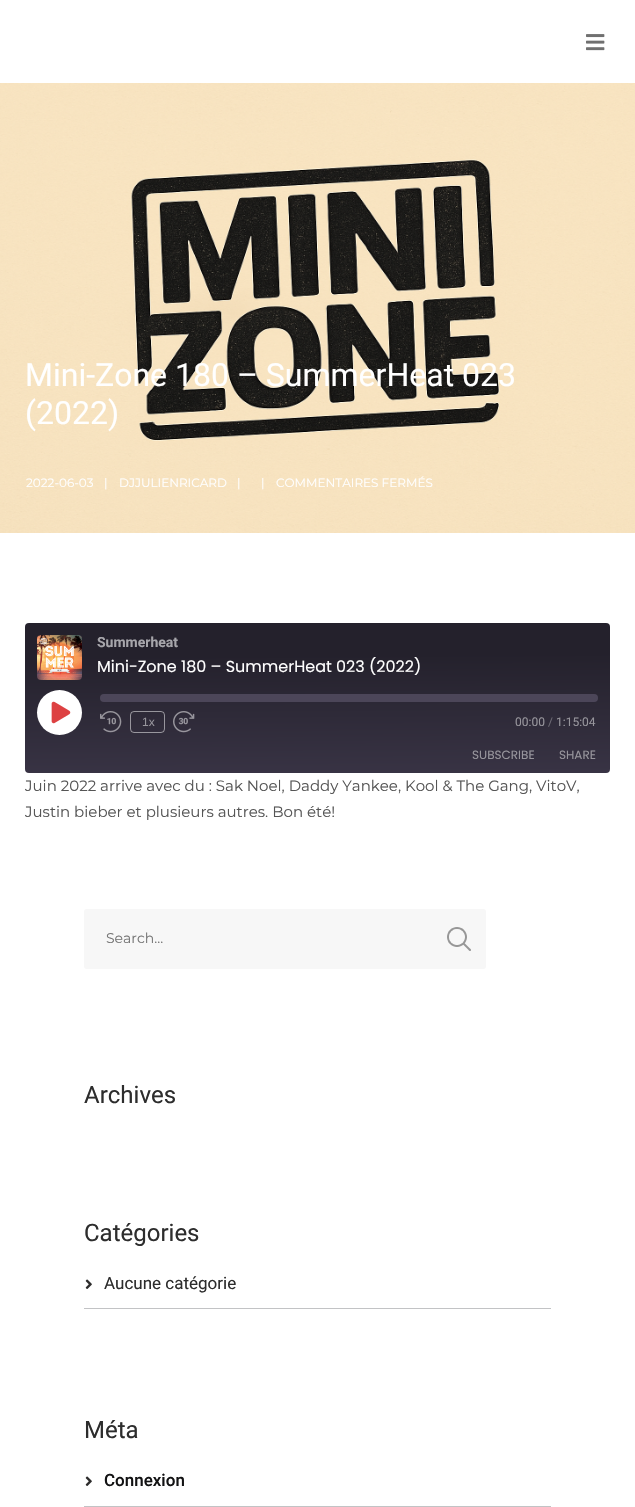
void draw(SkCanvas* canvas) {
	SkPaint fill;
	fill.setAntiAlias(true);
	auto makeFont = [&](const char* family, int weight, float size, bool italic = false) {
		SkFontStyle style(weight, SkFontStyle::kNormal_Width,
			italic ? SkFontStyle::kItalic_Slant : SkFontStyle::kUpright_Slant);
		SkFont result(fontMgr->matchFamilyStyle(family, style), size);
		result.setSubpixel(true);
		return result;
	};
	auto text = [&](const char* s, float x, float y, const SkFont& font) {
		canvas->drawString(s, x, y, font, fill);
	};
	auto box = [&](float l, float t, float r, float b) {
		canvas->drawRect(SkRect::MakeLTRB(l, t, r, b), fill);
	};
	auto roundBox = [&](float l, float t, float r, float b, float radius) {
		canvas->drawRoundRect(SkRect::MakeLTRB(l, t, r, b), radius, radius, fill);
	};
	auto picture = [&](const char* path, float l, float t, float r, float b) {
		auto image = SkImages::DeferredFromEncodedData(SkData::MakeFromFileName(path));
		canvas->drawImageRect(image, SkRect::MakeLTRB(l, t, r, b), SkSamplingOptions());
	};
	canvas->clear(0xFFFFFFFF);
	picture("image0.png", 586, 34, 605, 51);
	picture("image1.png", 0, 83, 635, 533);
	{
		const SkColor colors[] = {0xFF383344, 0xFF24212C};
		const float stops[] = {0.01f, 0.78f};
		const SkPoint ends[] = {{318, 775}, {317, 621}};
		fill.setShader(SkGradientShader::MakeLinear(ends, colors, stops, 2, SkTileMode::kClamp));
		fill.setAlpha(255);
	}
	roundBox(25, 623, 610, 773, 4);
	picture("image2.png", 37, 635, 82, 680);
	fill.setShader(nullptr);
	fill.setColor(0xFFFFFFFF);
	canvas->drawCircle(59.5f, 712.5f, 22.5f, fill);
	picture("image3.png", 51, 701, 71, 724);
	fill.setColor(0xFF4C4659);
	roundBox(100, 694, 598, 702, 4);
	picture("image4.png", 100, 711, 122, 733);
	fill.setStyle(SkPaint::kStroke_Style);
	fill.setStrokeWidth(1);
	fill.setColor(0x80FFFFFF);
	canvas->drawRoundRect(SkRect::MakeLTRB(130.5f, 711.5f, 164.5f, 732.5f), 3.5f, 3.5f, fill);
	picture("image5.png", 173, 711, 195, 733);
	fill.setStyle(SkPaint::kFill_Style);
	fill.setColor(0xFFF7F7F7);
	roundBox(84, 909, 486, 969, 3);
	picture("image6.png", 447, 927, 471, 951);
	fill.setColor(0xFFC2C3C5);
	box(84, 1308, 551, 1309);
	picture("image7.png", 85, 1279, 92, 1289);
	box(84, 1506, 551, 1507);
	picture("image7.png", 85, 1476, 92, 1486);
	auto font1 = makeFont("Roboto", 400, 32);
	fill.setColor(0xFFFFFFFF);
	text("Mini-Zone 180 – SummerHeat 023", 25, 386, font1);
	text("(2022)", 25, 424, font1);
	auto font2 = makeFont("Montserrat", 400, 12);
	text("2022-06-03", 26, 487, font2);
	text("|", 104, 487, font2);
	text("DJJULIENRICARD", 119, 487, font2);
	text("|", 237, 487, font2);
	text("|", 261, 487, font2);
	text("COMMENTAIRES FERMÉS", 276, 487, font2);
	auto font3 = makeFont("Roboto", 700, 14);
	fill.setColor(0xFFA7A6AB);
	text("Summerheat", 97, 647, font3);
	auto font4 = makeFont("Poppins", 400, 16);
	fill.setColor(0xFFFFFFFF);
	text("Mini-Zone 180 – SummerHeat 023 (2022)", 97, 672, font4);
	auto font5 = makeFont("Liberation Sans", 400, 12);
	fill.setColor(0xFF97959C);
	text("1x", 142, 726, font5);
	auto font6 = makeFont("Roboto", 400, 12);
	text("00:00", 515, 726, font6);
	fill.setColor(0xFF6E6B75);
	text("/", 548, 726, font6);
	fill.setColor(0xFF97959C);
	text("1:15:04", 556, 726, font6);
	auto font7 = makeFont("Poppins", 400, 12);
	text("SUBSCRIBE", 472, 759, font7);
	text("SHARE", 559, 759, font7);
	auto font8 = makeFont("Montserrat", 400, 15);
	fill.setColor(0xFF555555);
	text("Juin 2022 arrive avec du : Sak Noel, Daddy Yankee, Kool & The Gang, VitoV,", 25, 791, font8);
	text("Justin bieber et plusieurs autres. Bon été!", 25, 817, font8);
	auto font9 = makeFont("Montserrat", 400, 14);
	fill.setColor(0xFF757575);
	text("Search...", 106, 943, font9);
	auto font10 = makeFont("Roboto", 400, 24);
	fill.setColor(0xFF2D2D2D);
	text("Archives", 84, 1103, font10);
	text("Catégories", 84, 1241, font10);
	auto font11 = makeFont("Roboto", 400, 17);
	text("Aucune catégorie", 104, 1289, font11);
	text("Méta", 84, 1438, font10);
	auto font12 = makeFont("Roboto", 500, 17);
	fill.setColor(0xFF121213);
	text("Connexion", 104, 1486, font12);
}
